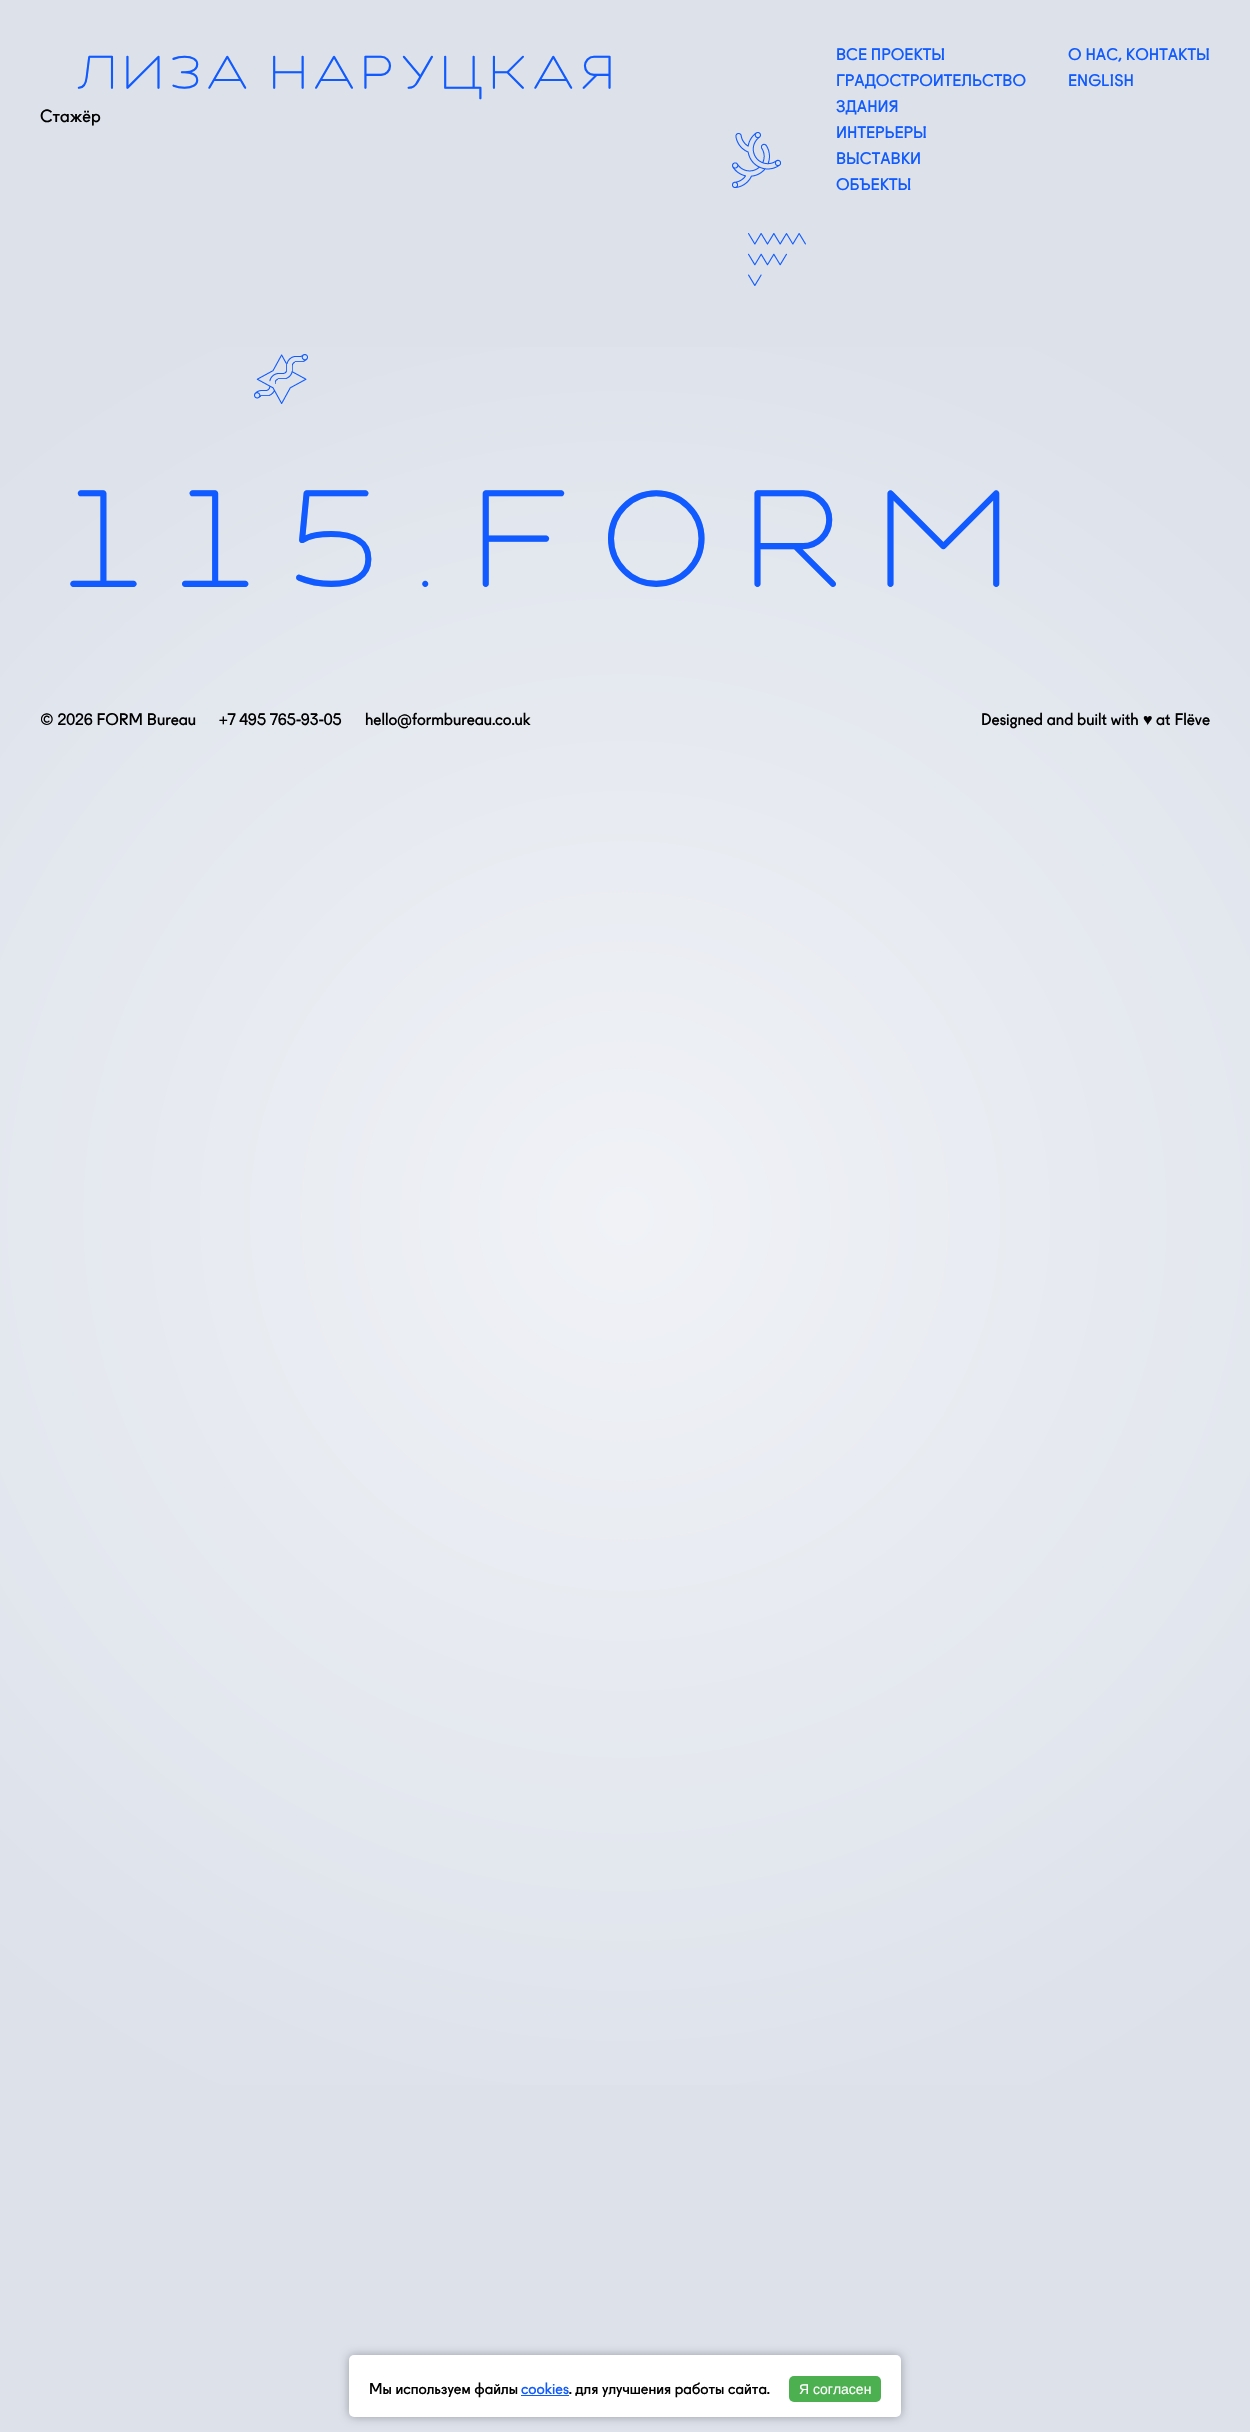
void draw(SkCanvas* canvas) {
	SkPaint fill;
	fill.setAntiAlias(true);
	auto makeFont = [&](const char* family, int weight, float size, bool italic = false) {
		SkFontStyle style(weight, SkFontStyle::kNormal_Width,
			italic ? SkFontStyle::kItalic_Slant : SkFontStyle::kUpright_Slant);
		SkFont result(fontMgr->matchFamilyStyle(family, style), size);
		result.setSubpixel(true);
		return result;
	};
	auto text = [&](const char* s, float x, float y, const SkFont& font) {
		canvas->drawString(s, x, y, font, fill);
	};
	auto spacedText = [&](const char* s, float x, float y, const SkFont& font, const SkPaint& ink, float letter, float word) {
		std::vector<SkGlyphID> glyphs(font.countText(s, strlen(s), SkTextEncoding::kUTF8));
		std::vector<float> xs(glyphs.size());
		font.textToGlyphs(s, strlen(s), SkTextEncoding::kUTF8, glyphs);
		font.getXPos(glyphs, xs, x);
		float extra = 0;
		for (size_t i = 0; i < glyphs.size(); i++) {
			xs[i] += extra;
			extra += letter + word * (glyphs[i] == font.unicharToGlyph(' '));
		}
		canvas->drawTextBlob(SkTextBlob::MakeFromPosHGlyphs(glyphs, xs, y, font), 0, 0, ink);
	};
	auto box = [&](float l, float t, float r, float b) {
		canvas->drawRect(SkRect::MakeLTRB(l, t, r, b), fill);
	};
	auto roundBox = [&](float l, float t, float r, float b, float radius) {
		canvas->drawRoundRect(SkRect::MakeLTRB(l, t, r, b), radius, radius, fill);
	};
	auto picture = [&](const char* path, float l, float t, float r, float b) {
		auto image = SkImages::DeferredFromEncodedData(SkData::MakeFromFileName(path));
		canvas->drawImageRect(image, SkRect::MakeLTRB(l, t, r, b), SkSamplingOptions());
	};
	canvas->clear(0xFFDCE1EA);
	{
		const SkColor colors[] = {0xFFF0F2F6, 0xFFDCE1EA};
		const float stops[] = {0, 1};
		fill.setShader(SkGradientShader::MakeRadial({625, 1216}, 1000, colors, stops, 2, SkTileMode::kClamp));
		fill.setAlpha(255);
	}
	box(0, 347, 1250, 2085);
	picture("image0.png", 732, 132, 781, 188);
	picture("image1.png", 748, 233, 806, 286);
	picture("image2.png", 254, 354, 308, 404);
	fill.setShader(nullptr);
	fill.setColor(0x4D000000);
	fill.setMaskFilter(SkMaskFilter::MakeBlur(kNormal_SkBlurStyle, 5));
	canvas->drawRoundRect(SkRect::MakeLTRB(349, 2355, 901, 2417), 5, 5, fill);
	fill.setMaskFilter(nullptr);
	fill.setColor(0xFFFFFFFF);
	roundBox(349, 2355, 901, 2417, 5);
	fill.setColor(0xFF105AFF);
	box(521, 2395, 569, 2396);
	fill.setColor(0xFF4CAF50);
	roundBox(789, 2376, 881, 2402, 5);
	auto font1 = makeFont("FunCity", 400, 51.75f);
	fill.setColor(0xFF105AFF);
	spacedText("Лиза Наруцкая", 68, 93, font1, fill, -10.3f, 0);
	auto font2 = makeFont("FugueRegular", 400, 17);
	fill.setColor(0xFF000000);
	text("Стажёр", 40, 122, font2);
	auto font3 = makeFont("FunCity", 400, 151);
	fill.setColor(0xFF105AFF);
	spacedText("115.FORM", 40, 599, font3, fill, -15, 0);
	auto font4 = makeFont("FugueRegular", 400, 16);
	text("ВСЕ ПРОЕКТЫ", 836, 60, font4);
	text("ГРАДОСТРОИТЕЛЬСТВО", 836, 86, font4);
	text("ЗДАНИЯ", 836, 112, font4);
	text("ИНТЕРЬЕРЫ", 836, 138, font4);
	text("ВЫСТАВКИ", 836, 164, font4);
	text("ОБЪЕКТЫ", 836, 190, font4);
	text("О НАС, КОНТАКТЫ", 1068, 60, font4);
	text("ENGLISH", 1068, 86, font4);
	fill.setColor(0xFF000000);
	text("© 2026 FORM Bureau", 40, 725, font4);
	text("+7 495 765-93-05", 219, 725, font4);
	text("hello@formbureau.co.uk", 365, 725, font4);
	text("Designed and built with", 981, 725, font4);
	auto font5 = makeFont("Liberation Sans", 400, 16);
	text("♥", 1143, 725, font5);
	text("at Flëve", 1156, 725, font4);
	auto font6 = makeFont("FugueRegular", 400, 15);
	text("Мы используем файлы", 369, 2394, font6);
	fill.setColor(0xFF105AFF);
	text("cookies", 521, 2394, font6);
	fill.setColor(0xFF000000);
	text(". для улучшения работы сайта.", 569, 2394, font6);
	auto font7 = makeFont("Liberation Sans", 400, 14);
	fill.setColor(0xFFFFFFFF);
	text("Я согласен", 799, 2394, font7);
}
